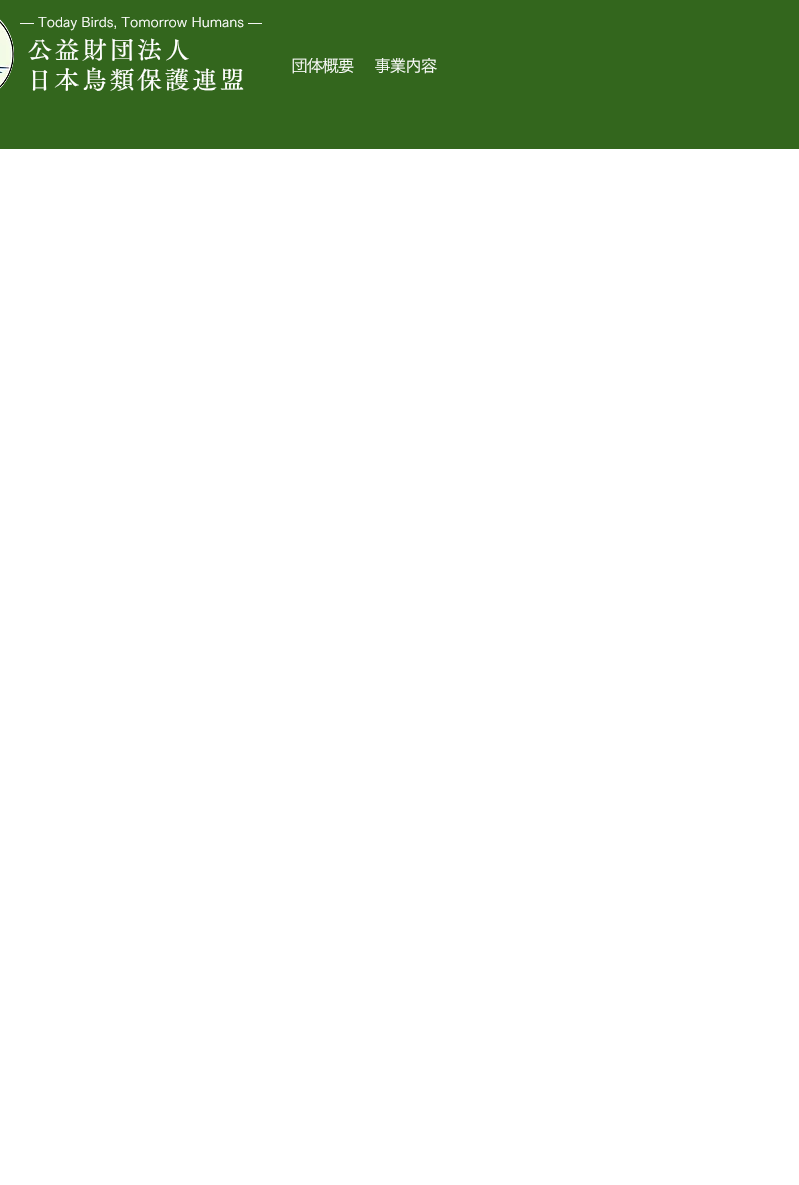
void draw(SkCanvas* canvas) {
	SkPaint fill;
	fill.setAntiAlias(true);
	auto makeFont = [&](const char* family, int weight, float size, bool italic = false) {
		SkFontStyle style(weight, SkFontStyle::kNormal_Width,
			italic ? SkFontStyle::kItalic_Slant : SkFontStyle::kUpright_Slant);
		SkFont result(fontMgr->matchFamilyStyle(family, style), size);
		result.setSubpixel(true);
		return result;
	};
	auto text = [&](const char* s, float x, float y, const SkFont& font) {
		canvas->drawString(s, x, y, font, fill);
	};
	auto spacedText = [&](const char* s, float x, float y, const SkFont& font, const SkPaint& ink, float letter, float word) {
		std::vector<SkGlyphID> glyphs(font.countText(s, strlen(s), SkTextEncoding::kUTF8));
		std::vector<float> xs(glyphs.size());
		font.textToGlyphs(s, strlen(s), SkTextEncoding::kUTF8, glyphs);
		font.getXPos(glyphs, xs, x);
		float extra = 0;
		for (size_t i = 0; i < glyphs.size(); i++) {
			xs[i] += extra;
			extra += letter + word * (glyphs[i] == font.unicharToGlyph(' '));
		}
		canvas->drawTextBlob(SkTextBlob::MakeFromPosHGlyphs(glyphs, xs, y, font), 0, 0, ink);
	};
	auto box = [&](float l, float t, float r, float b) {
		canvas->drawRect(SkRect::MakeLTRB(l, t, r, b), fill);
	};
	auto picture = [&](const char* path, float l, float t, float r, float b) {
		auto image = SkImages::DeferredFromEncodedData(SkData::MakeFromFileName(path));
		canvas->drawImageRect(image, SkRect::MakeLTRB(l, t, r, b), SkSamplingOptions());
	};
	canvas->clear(0xFFFFFFFF);
	fill.setColor(0xFF33661D);
	box(0, 0, 799, 149);
	fill.setColor(0xFFFFFFFF);
	canvas->drawOval(SkRect::MakeLTRB(-82, 5, 14, 103), fill);
	picture("image0.png", 0, 20, 14, 88);
	auto font1 = makeFont("Liberation Sans", 400, 14);
	text("―", 20, 27, font1);
	auto font2 = makeFont("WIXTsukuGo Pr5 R", 400, 14);
	text("Today Birds, Tomorrow Humans", 38, 27, font2);
	text("―", 248, 27, font1);
	auto font3 = makeFont("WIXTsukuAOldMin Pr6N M", 500, 25);
	spacedText("公益財団法人", 27, 59, font3, fill, 2.5f, 0);
	spacedText("日本鳥類保護連盟", 27, 89, font3, fill, 2.5f, 0);
	auto font4 = makeFont("WIXTsukuGo Pr5 R", 400, 17);
	spacedText("団体概要", 291, 72, font4, fill, -1.5f, 0);
	spacedText("事業内容", 374, 72, font4, fill, -1.5f, 0);
}
